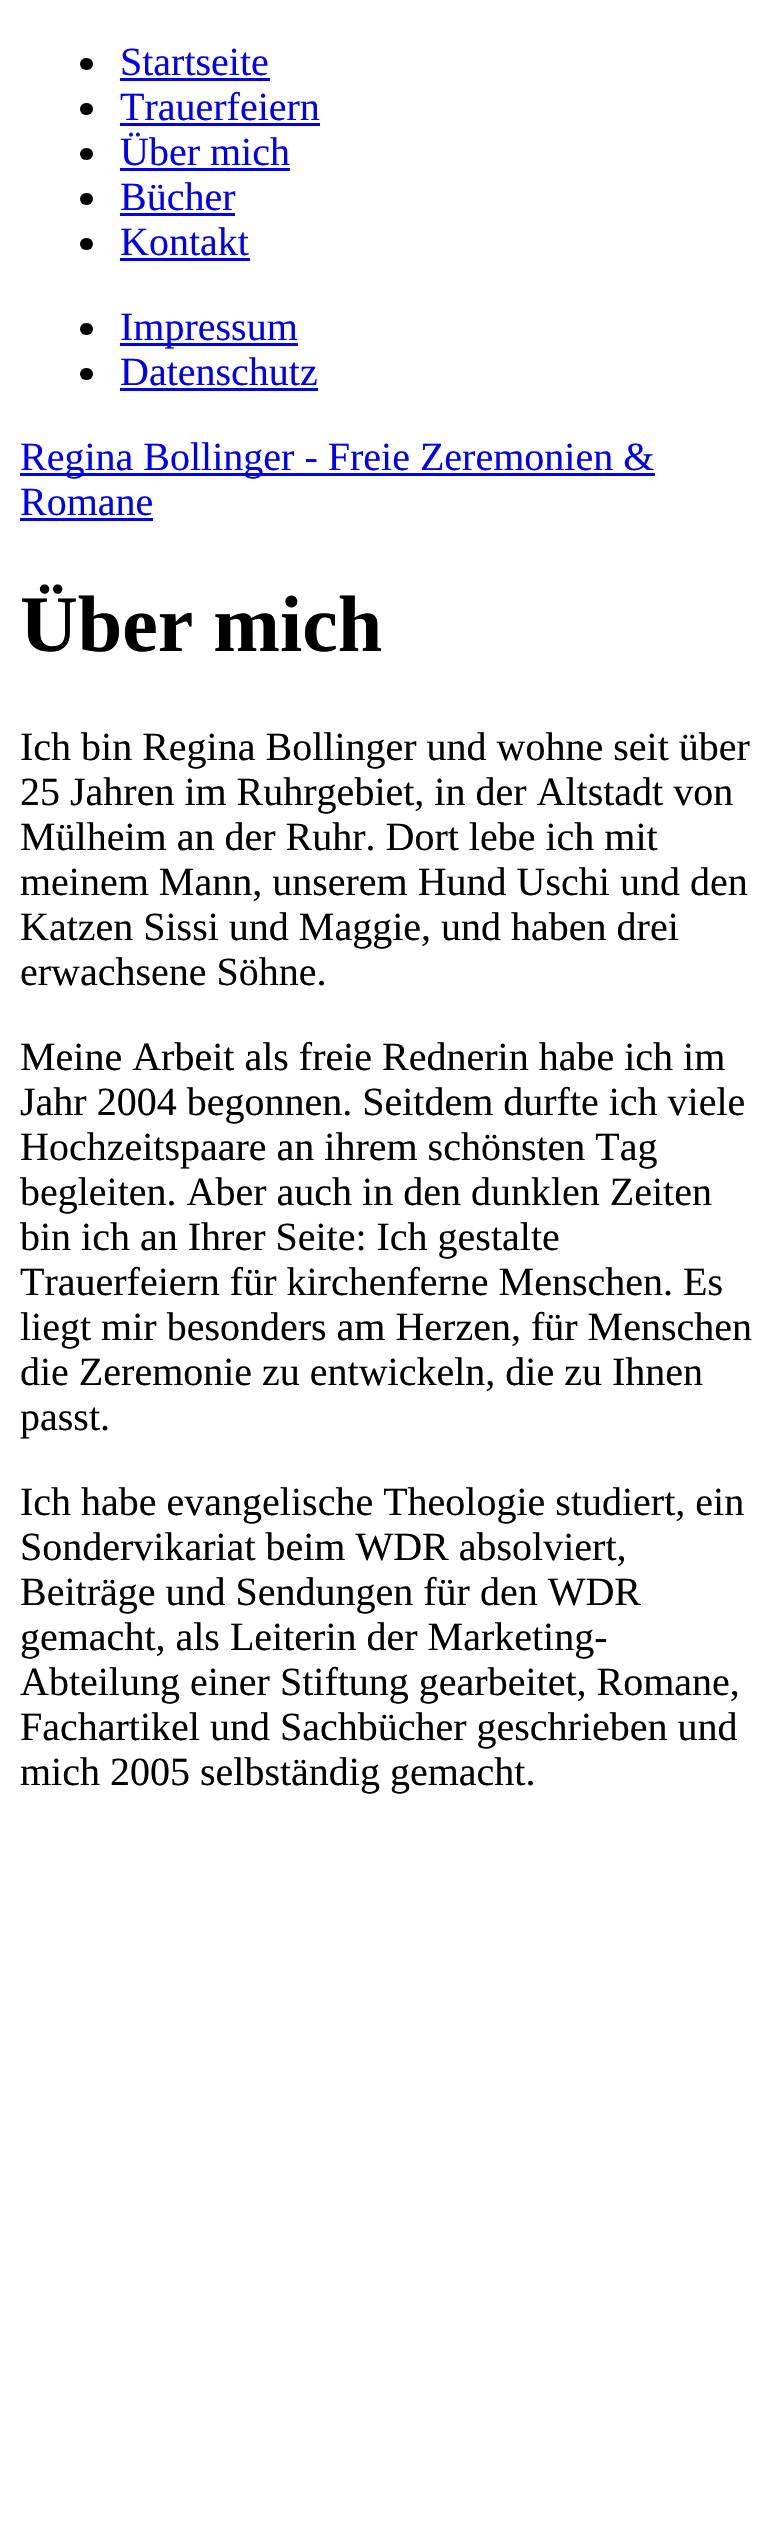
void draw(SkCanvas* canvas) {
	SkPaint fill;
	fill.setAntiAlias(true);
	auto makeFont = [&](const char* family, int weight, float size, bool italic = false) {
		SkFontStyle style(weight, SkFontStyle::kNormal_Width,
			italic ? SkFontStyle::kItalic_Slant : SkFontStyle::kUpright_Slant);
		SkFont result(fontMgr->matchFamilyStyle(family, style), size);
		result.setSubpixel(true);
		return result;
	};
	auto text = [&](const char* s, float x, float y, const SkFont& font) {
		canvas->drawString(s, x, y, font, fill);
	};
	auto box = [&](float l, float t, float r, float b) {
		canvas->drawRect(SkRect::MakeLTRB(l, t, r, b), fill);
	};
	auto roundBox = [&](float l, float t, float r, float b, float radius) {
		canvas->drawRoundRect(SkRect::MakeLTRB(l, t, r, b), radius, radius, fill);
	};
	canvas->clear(0xFFFFFFFF);
	fill.setColor(0xFF000000);
	roundBox(80, 58, 93, 70, 6);
	fill.setColor(0xFF0000EE);
	box(120, 78, 270, 81);
	fill.setColor(0xFF000000);
	roundBox(80, 103, 93, 115, 6);
	fill.setColor(0xFF0000EE);
	box(120, 123, 320, 126);
	fill.setColor(0xFF000000);
	roundBox(80, 148, 93, 160, 6);
	fill.setColor(0xFF0000EE);
	box(120, 168, 290, 171);
	fill.setColor(0xFF000000);
	roundBox(80, 193, 93, 205, 6);
	fill.setColor(0xFF0000EE);
	box(120, 213, 235, 216);
	fill.setColor(0xFF000000);
	roundBox(80, 238, 93, 250, 6);
	fill.setColor(0xFF0000EE);
	box(120, 258, 250, 261);
	fill.setColor(0xFF000000);
	roundBox(80, 323, 93, 335, 6);
	fill.setColor(0xFF0000EE);
	box(120, 343, 298, 346);
	fill.setColor(0xFF000000);
	roundBox(80, 368, 93, 380, 6);
	fill.setColor(0xFF0000EE);
	box(120, 388, 318, 391);
	box(20, 473, 655, 476);
	box(20, 518, 153, 521);
	auto font1 = makeFont("Liberation Serif", 400, 40);
	text("Startseite", 120, 75, font1);
	text("Trauerfeiern", 120, 120, font1);
	text("Über mich", 120, 165, font1);
	text("Bücher", 120, 210, font1);
	text("Kontakt", 120, 255, font1);
	text("Impressum", 120, 340, font1);
	text("Datenschutz", 120, 385, font1);
	text("Regina Bollinger - Freie Zeremonien &", 20, 470, font1);
	text("Romane", 20, 515, font1);
	auto font2 = makeFont("Liberation Serif", 700, 80);
	fill.setColor(0xFF000000);
	text("Über mich", 20, 651, font2);
	text("Ich bin Regina Bollinger und wohne seit über", 20, 760, font1);
	text("25 Jahren im Ruhrgebiet, in der Altstadt von", 20, 805, font1);
	text("Mülheim an der Ruhr. Dort lebe ich mit", 20, 850, font1);
	text("meinem Mann, unserem Hund Uschi und den", 20, 895, font1);
	text("Katzen Sissi und Maggie, und haben drei", 20, 940, font1);
	text("erwachsene Söhne.", 20, 985, font1);
	text("Meine Arbeit als freie Rednerin habe ich im", 20, 1070, font1);
	text("Jahr 2004 begonnen. Seitdem durfte ich viele", 20, 1115, font1);
	text("Hochzeitspaare an ihrem schönsten Tag", 20, 1160, font1);
	text("begleiten. Aber auch in den dunklen Zeiten", 20, 1205, font1);
	text("bin ich an Ihrer Seite: Ich gestalte", 20, 1250, font1);
	text("Trauerfeiern für kirchenferne Menschen. Es", 20, 1295, font1);
	text("liegt mir besonders am Herzen, für Menschen", 20, 1340, font1);
	text("die Zeremonie zu entwickeln, die zu Ihnen", 20, 1385, font1);
	text("passt.", 20, 1430, font1);
	text("Ich habe evangelische Theologie studiert, ein", 20, 1515, font1);
	text("Sondervikariat beim WDR absolviert,", 20, 1560, font1);
	text("Beiträge und Sendungen für den WDR", 20, 1605, font1);
	text("gemacht, als Leiterin der Marketing-", 20, 1650, font1);
	text("Abteilung einer Stiftung gearbeitet, Romane,", 20, 1695, font1);
	text("Fachartikel und Sachbücher geschrieben und", 20, 1740, font1);
	text("mich 2005 selbständig gemacht.", 20, 1785, font1);
}
